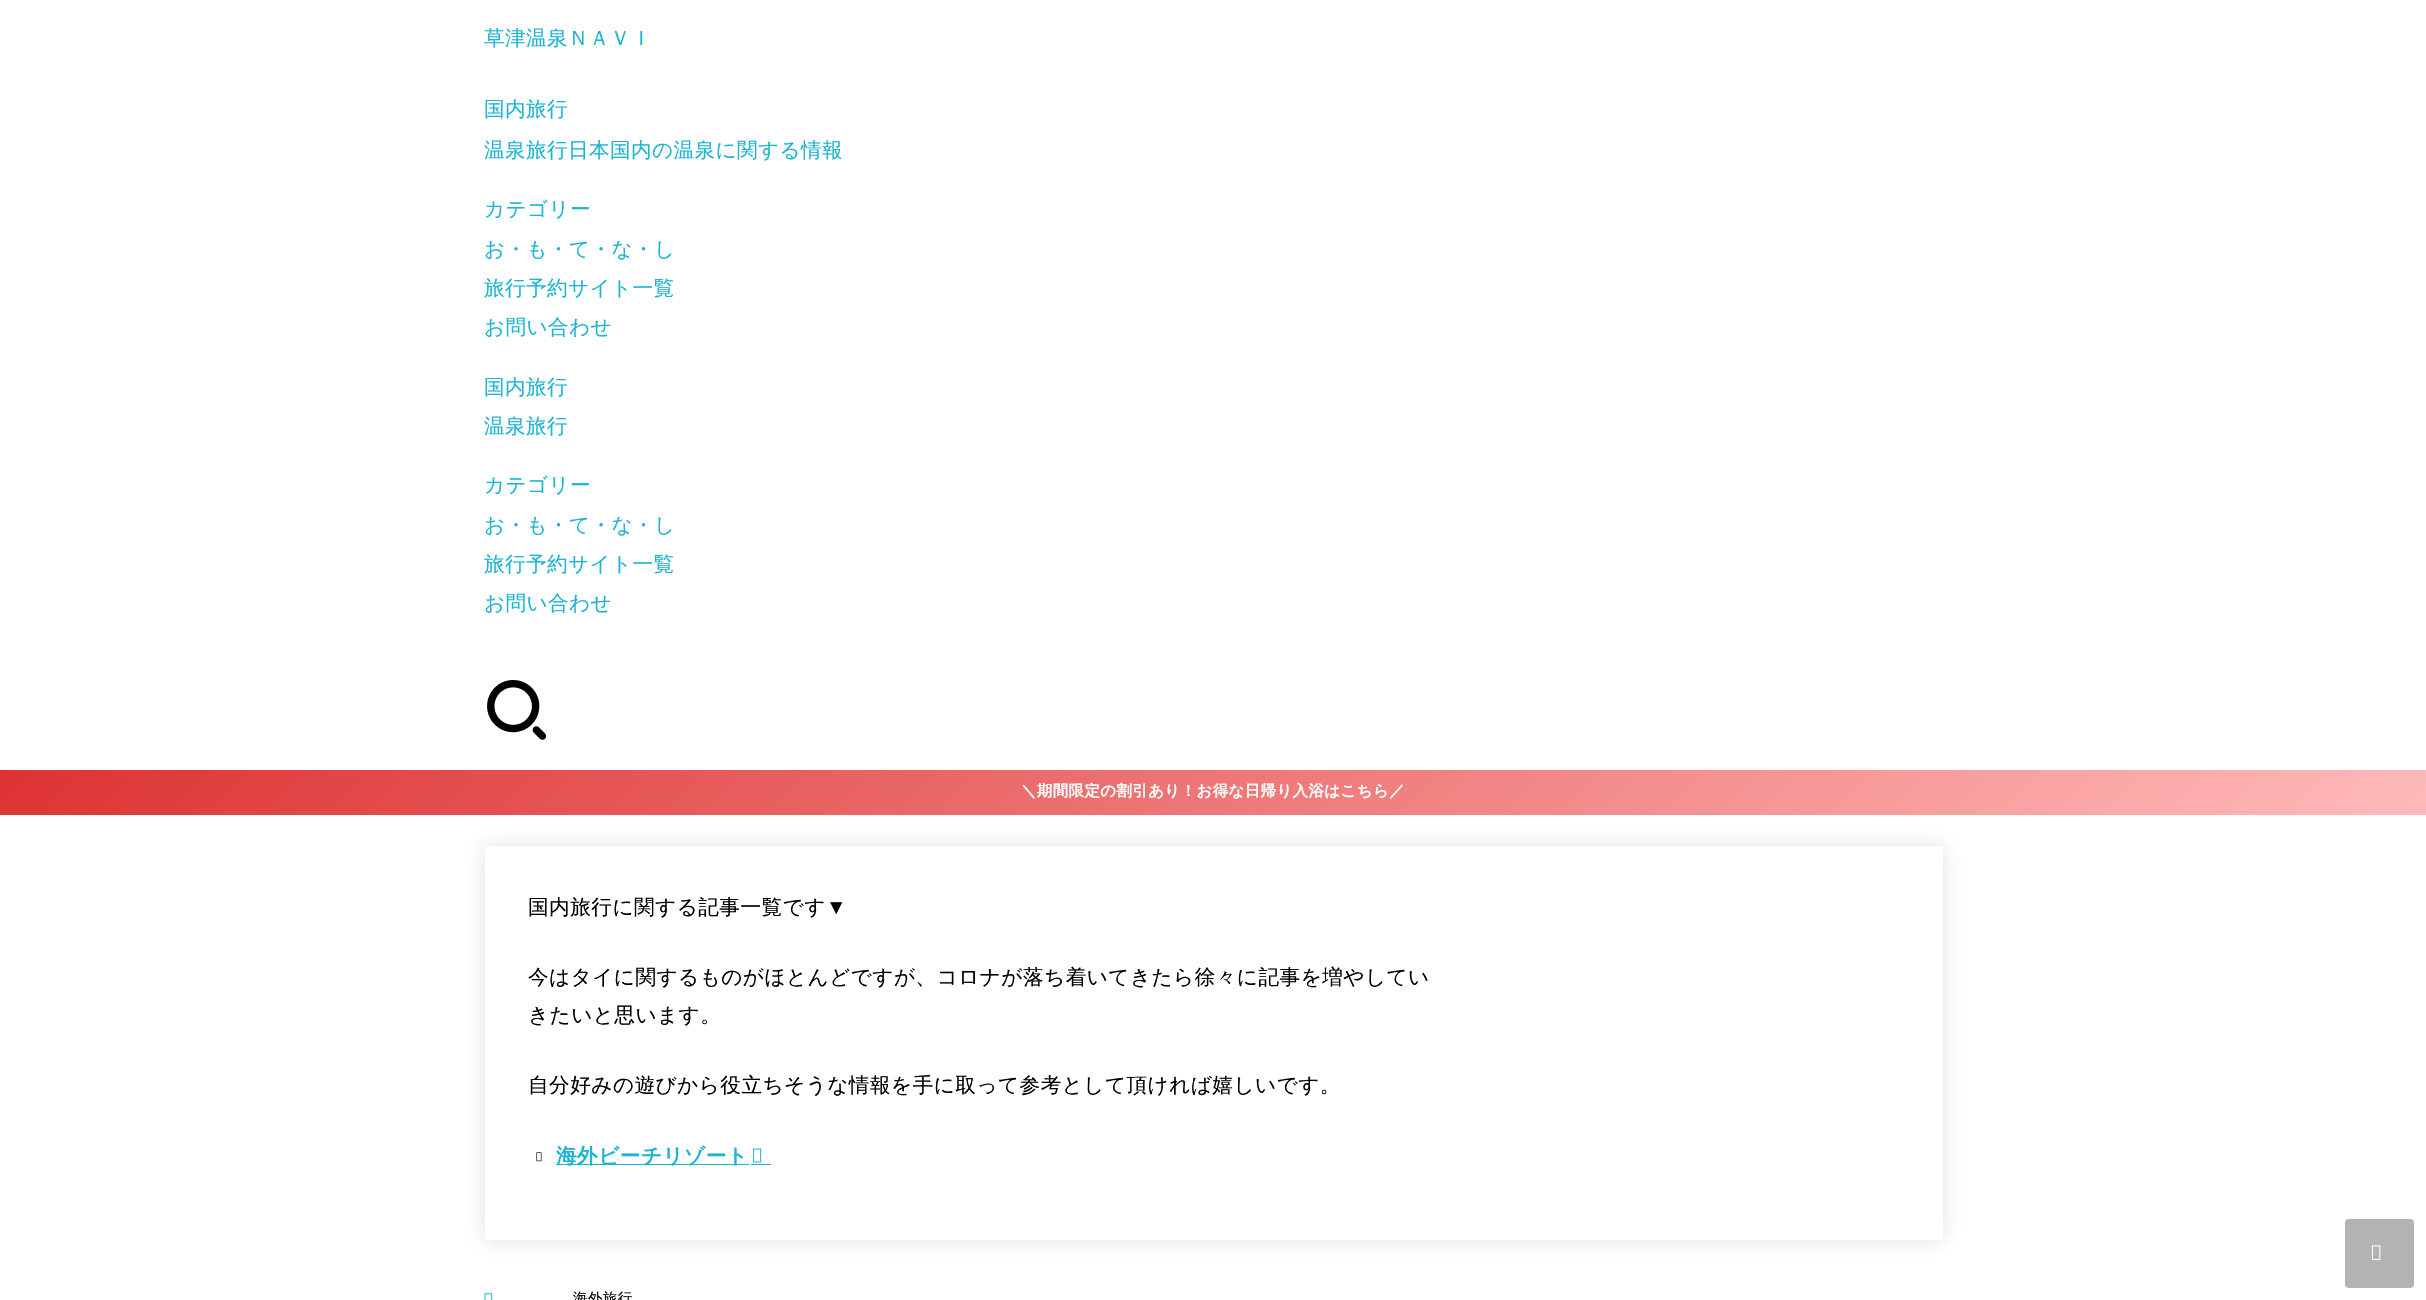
void draw(SkCanvas* canvas) {
	SkPaint fill;
	fill.setAntiAlias(true);
	auto makeFont = [&](const char* family, int weight, float size, bool italic = false) {
		SkFontStyle style(weight, SkFontStyle::kNormal_Width,
			italic ? SkFontStyle::kItalic_Slant : SkFontStyle::kUpright_Slant);
		SkFont result(fontMgr->matchFamilyStyle(family, style), size);
		result.setSubpixel(true);
		return result;
	};
	auto spacedText = [&](const char* s, float x, float y, const SkFont& font, const SkPaint& ink, float letter, float word) {
		std::vector<SkGlyphID> glyphs(font.countText(s, strlen(s), SkTextEncoding::kUTF8));
		std::vector<float> xs(glyphs.size());
		font.textToGlyphs(s, strlen(s), SkTextEncoding::kUTF8, glyphs);
		font.getXPos(glyphs, xs, x);
		float extra = 0;
		for (size_t i = 0; i < glyphs.size(); i++) {
			xs[i] += extra;
			extra += letter + word * (glyphs[i] == font.unicharToGlyph(' '));
		}
		canvas->drawTextBlob(SkTextBlob::MakeFromPosHGlyphs(glyphs, xs, y, font), 0, 0, ink);
	};
	auto box = [&](float l, float t, float r, float b) {
		canvas->drawRect(SkRect::MakeLTRB(l, t, r, b), fill);
	};
	auto roundBox = [&](float l, float t, float r, float b, float radius) {
		canvas->drawRoundRect(SkRect::MakeLTRB(l, t, r, b), radius, radius, fill);
	};
	auto picture = [&](const char* path, float l, float t, float r, float b) {
		auto image = SkImages::DeferredFromEncodedData(SkData::MakeFromFileName(path));
		canvas->drawImageRect(image, SkRect::MakeLTRB(l, t, r, b), SkSamplingOptions());
	};
	canvas->clear(0xFFFFFFFF);
	picture("image0.png", 487, 680, 546, 740);
	{
		const SkColor colors[] = {0xFFDD3333, 0xFFFFBABA};
		const float stops[] = {0, 1};
		const SkPoint ends[] = {{595, 175}, {1831, 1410}};
		fill.setShader(SkGradientShader::MakeLinear(ends, colors, stops, 2, SkTileMode::kClamp));
		fill.setAlpha(255);
	}
	box(0, 770, 2426, 815);
	fill.setShader(nullptr);
	fill.setColor(0x33666666);
	fill.setMaskFilter(SkMaskFilter::MakeBlur(kNormal_SkBlurStyle, 9.5f));
	canvas->drawRect(SkRect::MakeLTRB(485, 846, 1943, 1240), fill);
	fill.setMaskFilter(nullptr);
	fill.setColor(0xFFFFFFFF);
	box(485, 846, 1943, 1240);
	picture("image1.png", 536, 1152, 542, 1162);
	fill.setColor(0xFF1BB4D3);
	box(556, 1164, 749, 1165);
	box(751, 1164, 771, 1165);
	picture("image2.png", 753, 1148, 762, 1163);
	picture("image3.png", 484, 1293, 493, 1300);
	fill.setColor(0xFFB3B3B3);
	roundBox(2345, 1219, 2414, 1288, 4);
	picture("image4.png", 2371, 1245, 2381, 1260);
	auto font1 = makeFont("WenQuanYi Zen Hei", 500, 20.6f);
	fill.setColor(0xFF1BB4D3);
	spacedText("草津温泉ＮＡＶＩ", 484, 45, font1, fill, 0.4f, 0);
	spacedText("国内旅行", 484, 116, font1, fill, 0.4f, 0);
	spacedText("温泉旅行日本国内の温泉に関する情報", 484, 157, font1, fill, 0.4f, 0);
	spacedText("カテゴリー", 484, 216, font1, fill, 0.4f, 0);
	spacedText("お・も・て・な・し", 484, 256, font1, fill, 0.4f, 0);
	spacedText("旅行予約サイト一覧", 484, 295, font1, fill, 0.4f, 0);
	spacedText("お問い合わせ", 484, 334, font1, fill, 0.4f, 0);
	spacedText("国内旅行", 484, 394, font1, fill, 0.4f, 0);
	spacedText("温泉旅行", 484, 433, font1, fill, 0.4f, 0);
	spacedText("カテゴリー", 484, 492, font1, fill, 0.4f, 0);
	spacedText("お・も・て・な・し", 484, 532, font1, fill, 0.4f, 0);
	spacedText("旅行予約サイト一覧", 484, 571, font1, fill, 0.4f, 0);
	spacedText("お問い合わせ", 484, 610, font1, fill, 0.4f, 0);
	auto font2 = makeFont("WenQuanYi Zen Hei", 700, 15.45f);
	fill.setColor(0xFFFFFFFF);
	spacedText("＼期間限定の割引あり！お得な日帰り入浴はこちら／", 1021, 796, font2, fill, 0.4f, 0);
	fill.setColor(0xFF000000);
	spacedText("国内旅行に関する記事一覧です", 528, 914, font1, fill, 0.5f, 0);
	auto font3 = makeFont("Liberation Sans", 400, 20.6f);
	spacedText("▼", 826, 914, font3, fill, 0.5f, 0);
	spacedText("今はタイに関するものがほとんどですが、コロナが落ち着いてきたら徐々に記事を増やしてい", 528, 984, font1, fill, 0.5f, 0);
	spacedText("きたいと思います。", 528, 1022, font1, fill, 0.5f, 0);
	spacedText("自分好みの遊びから役立ちそうな情報を手に取って参考として頂ければ嬉しいです。", 528, 1092, font1, fill, 0.5f, 0);
	auto font4 = makeFont("WenQuanYi Zen Hei", 700, 20.6f);
	fill.setColor(0xFF1BB4D3);
	spacedText("海外ビーチリゾート", 556, 1163, font4, fill, 0.5f, 0);
	auto font5 = makeFont("WenQuanYi Zen Hei", 500, 14.5f);
	fill.setColor(0xFF000000);
	spacedText("海外旅行", 573, 1303, font5, fill, 0.4f, 0);
}
